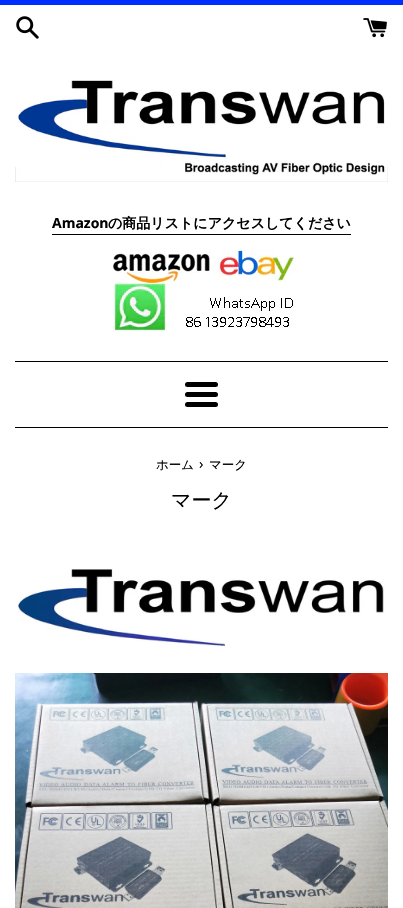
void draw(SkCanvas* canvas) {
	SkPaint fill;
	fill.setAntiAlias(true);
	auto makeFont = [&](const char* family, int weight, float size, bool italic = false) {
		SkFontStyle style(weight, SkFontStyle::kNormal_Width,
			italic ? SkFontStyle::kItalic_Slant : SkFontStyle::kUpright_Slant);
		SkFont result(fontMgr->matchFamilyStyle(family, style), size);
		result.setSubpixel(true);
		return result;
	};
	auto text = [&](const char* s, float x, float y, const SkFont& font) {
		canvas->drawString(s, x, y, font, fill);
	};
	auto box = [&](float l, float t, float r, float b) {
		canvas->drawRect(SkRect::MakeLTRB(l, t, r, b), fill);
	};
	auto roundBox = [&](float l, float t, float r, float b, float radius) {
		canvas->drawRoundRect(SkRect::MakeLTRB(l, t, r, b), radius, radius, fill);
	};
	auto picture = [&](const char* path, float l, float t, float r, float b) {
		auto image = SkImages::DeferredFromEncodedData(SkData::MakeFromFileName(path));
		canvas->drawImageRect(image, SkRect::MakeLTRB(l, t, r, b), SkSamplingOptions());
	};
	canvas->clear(0xFFFFFFFF);
	fill.setColor(0xFF002EFE);
	box(0, 0, 403, 5);
	picture("image0.png", 16, 16, 39, 39);
	picture("image1.png", 363, 18, 387, 38);
	picture("image2.png", 15, 80, 388, 182);
	fill.setColor(0xFF000000);
	box(52, 234, 351, 235);
	picture("image3.png", 113, 249, 295, 333);
	box(15, 361, 388, 362);
	roundBox(185, 382, 218, 387, 2.5f);
	roundBox(185, 392, 218, 397, 2.5f);
	roundBox(185, 402, 218, 407, 2.5f);
	box(15, 427, 388, 428);
	picture("image4.png", 18, 569, 385, 647);
	picture("image5.png", 15, 673, 388, 908);
	auto font1 = makeFont("Open Sans", 700, 14);
	text("Amazon", 52, 228, font1);
	auto font2 = makeFont("WenQuanYi Zen Hei", 700, 14);
	text("の商品リストにアクセスしてください", 108, 228, font2);
	auto font3 = makeFont("WenQuanYi Zen Hei", 500, 12.5f);
	text("ホーム", 156, 469, font3);
	auto font4 = makeFont("Open Sans", 400, 15);
	text("›", 199, 469, font4);
	text("マーク", 209, 469, font3);
	auto font5 = makeFont("WenQuanYi Zen Hei", 500, 20);
	text("マーク", 171, 507, font5);
}
